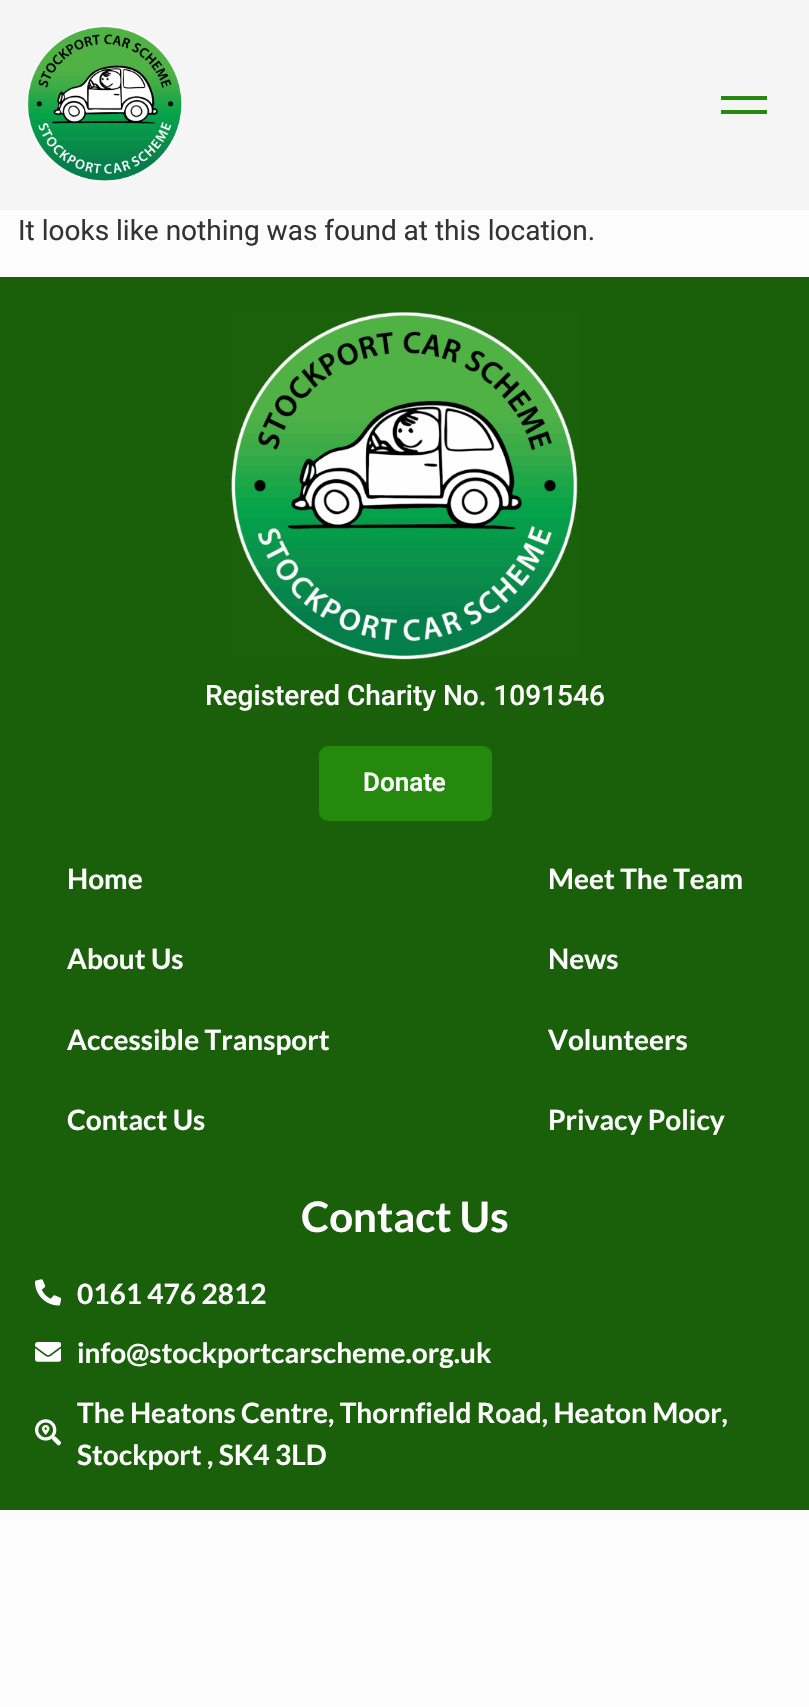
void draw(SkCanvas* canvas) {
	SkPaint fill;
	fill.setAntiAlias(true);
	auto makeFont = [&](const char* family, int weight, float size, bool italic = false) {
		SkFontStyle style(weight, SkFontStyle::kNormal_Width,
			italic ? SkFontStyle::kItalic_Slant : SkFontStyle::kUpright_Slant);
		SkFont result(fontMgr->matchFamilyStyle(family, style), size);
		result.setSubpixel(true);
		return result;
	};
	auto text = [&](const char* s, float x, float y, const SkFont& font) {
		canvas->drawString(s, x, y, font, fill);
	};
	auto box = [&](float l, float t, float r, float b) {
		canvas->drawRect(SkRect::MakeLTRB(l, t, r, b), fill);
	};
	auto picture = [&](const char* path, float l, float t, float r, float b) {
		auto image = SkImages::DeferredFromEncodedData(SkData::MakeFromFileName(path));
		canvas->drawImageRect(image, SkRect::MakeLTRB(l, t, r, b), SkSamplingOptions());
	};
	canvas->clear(0xFFFCFCFC);
	fill.setColor(0xFFF5F5F5);
	box(0, 0, 809, 210);
	picture("image0.png", 27, 26, 183, 182);
	fill.setColor(0xFF24890D);
	box(721, 96, 767, 100);
	box(721, 110, 767, 114);
	fill.setColor(0xFF1A5F0A);
	box(0, 277, 809, 1510);
	picture("image1.png", 231, 312, 578, 660);
	fill.setColor(0xFF24890D);
	canvas->drawRoundRect(SkRect::MakeLTRB(321, 748, 490, 819), 7, 7, fill);
	fill.setStyle(SkPaint::kStroke_Style);
	fill.setStrokeWidth(4);
	canvas->drawRoundRect(SkRect::MakeLTRB(321, 748, 490, 819), 7, 7, fill);
	picture("image2.png", 35, 1279, 61, 1306);
	picture("image3.png", 35, 1342, 61, 1362);
	picture("image4.png", 35, 1419, 61, 1446);
	auto font1 = makeFont("Roboto", 400, 28);
	fill.setStyle(SkPaint::kFill_Style);
	fill.setColor(0xFF333333);
	text("It looks like nothing was found at this location.", 18, 240, font1);
	auto font2 = makeFont("Roboto", 500, 28);
	fill.setColor(0xFFFFFFFF);
	text("Registered Charity No. 1091546", 205, 705, font2);
	auto font3 = makeFont("Roboto", 600, 26);
	text("Donate", 363, 791, font3);
	auto font4 = makeFont("Lato", 700, 28);
	text("Home", 67, 889, font4);
	text("About Us", 67, 969, font4);
	text("Accessible Transport", 67, 1050, font4);
	text("Contact Us", 67, 1130, font4);
	text("Meet The Team", 548, 889, font4);
	text("News", 548, 969, font4);
	text("Volunteers", 548, 1050, font4);
	text("Privacy Policy", 548, 1130, font4);
	auto font5 = makeFont("Lato", 700, 42);
	text("Contact Us", 301, 1232, font5);
	text("0161 476 2812", 77, 1304, font4);
	text("info@stockportcarscheme.org.uk", 77, 1363, font4);
	text("The Heatons Centre, Thornfield Road, Heaton Moor,", 77, 1423, font4);
	text("Stockport , SK4 3LD", 77, 1465, font4);
}
